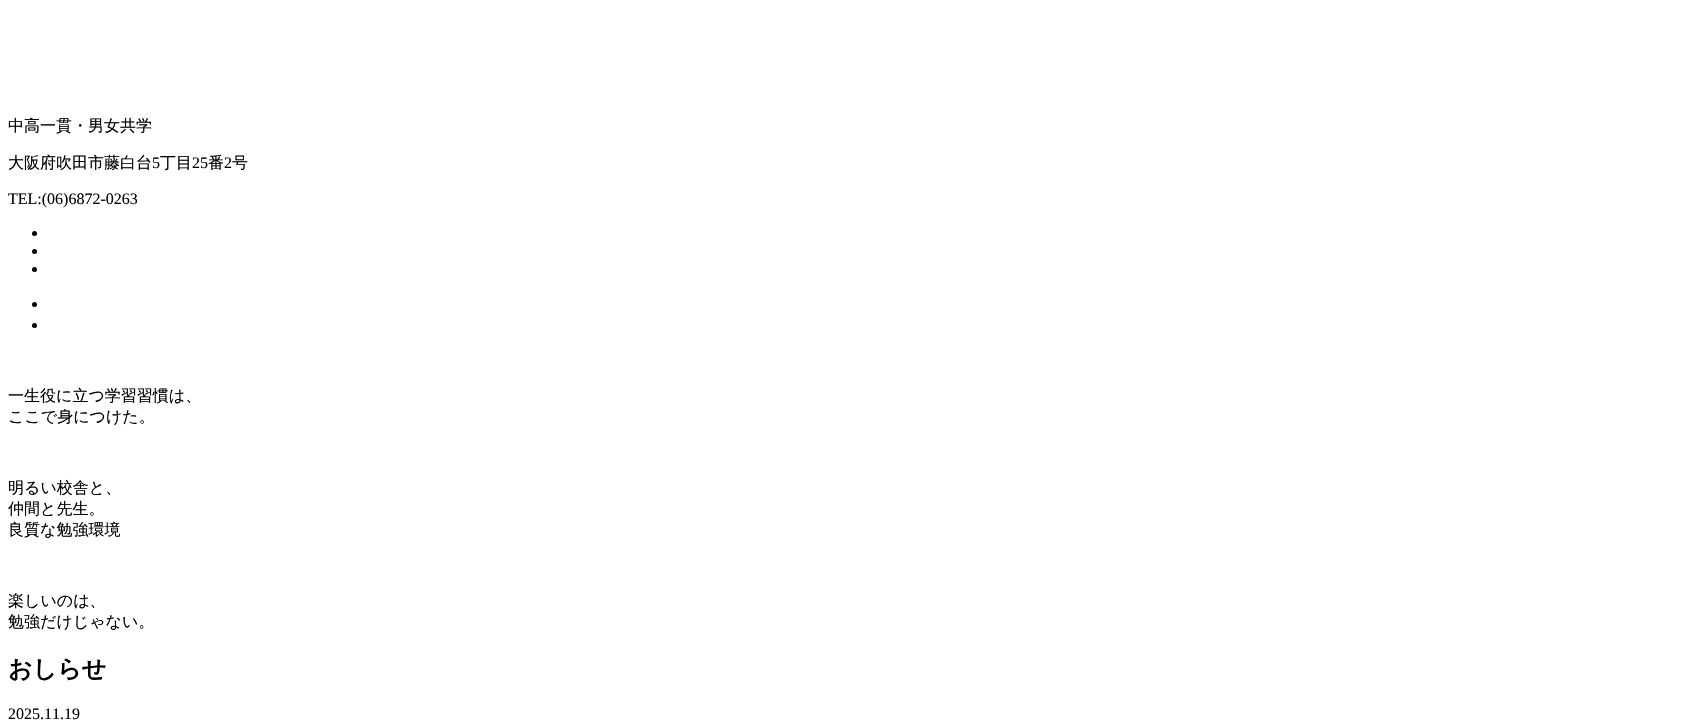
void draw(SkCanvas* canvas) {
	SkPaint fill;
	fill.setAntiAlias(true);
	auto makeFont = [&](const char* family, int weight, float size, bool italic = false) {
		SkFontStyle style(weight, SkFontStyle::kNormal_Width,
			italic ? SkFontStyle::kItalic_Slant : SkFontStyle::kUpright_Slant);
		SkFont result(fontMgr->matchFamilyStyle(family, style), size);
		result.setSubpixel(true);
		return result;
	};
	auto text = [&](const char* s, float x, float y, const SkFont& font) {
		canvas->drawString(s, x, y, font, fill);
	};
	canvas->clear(0xFFFFFFFF);
	fill.setColor(0xFF000000);
	canvas->drawCircle(34.5f, 233.5f, 2.5f, fill);
	canvas->drawCircle(34.5f, 251.5f, 2.5f, fill);
	canvas->drawCircle(34.5f, 269.5f, 2.5f, fill);
	canvas->drawCircle(34.5f, 304.5f, 2.5f, fill);
	canvas->drawCircle(34.5f, 325.5f, 2.5f, fill);
	auto font1 = makeFont("WenQuanYi Zen Hei", 500, 16);
	text("中高一貫・男女共学", 8, 131, font1);
	text("大阪府吹田市藤白台", 8, 168, font1);
	auto font2 = makeFont("Liberation Serif", 400, 16);
	text("5", 152, 168, font2);
	text("丁目", 160, 168, font1);
	text("25", 192, 168, font2);
	text("番", 208, 168, font1);
	text("2", 224, 168, font2);
	text("号", 232, 168, font1);
	text("TEL:(06)6872-0263", 8, 204, font2);
	text("一生役に立つ学習習慣は、", 8, 401, font1);
	text("ここで身につけた。", 8, 422, font1);
	text("明るい校舎と、", 8, 493, font1);
	text("仲間と先生。", 8, 514, font1);
	text("良質な勉強環境", 8, 535, font1);
	text("楽しいのは、", 8, 606, font1);
	text("勉強だけじゃない。", 8, 627, font1);
	auto font3 = makeFont("WenQuanYi Zen Hei", 700, 24);
	text("おしらせ", 8, 677, font3);
	text("2025.11.19", 8, 719, font2);
}
